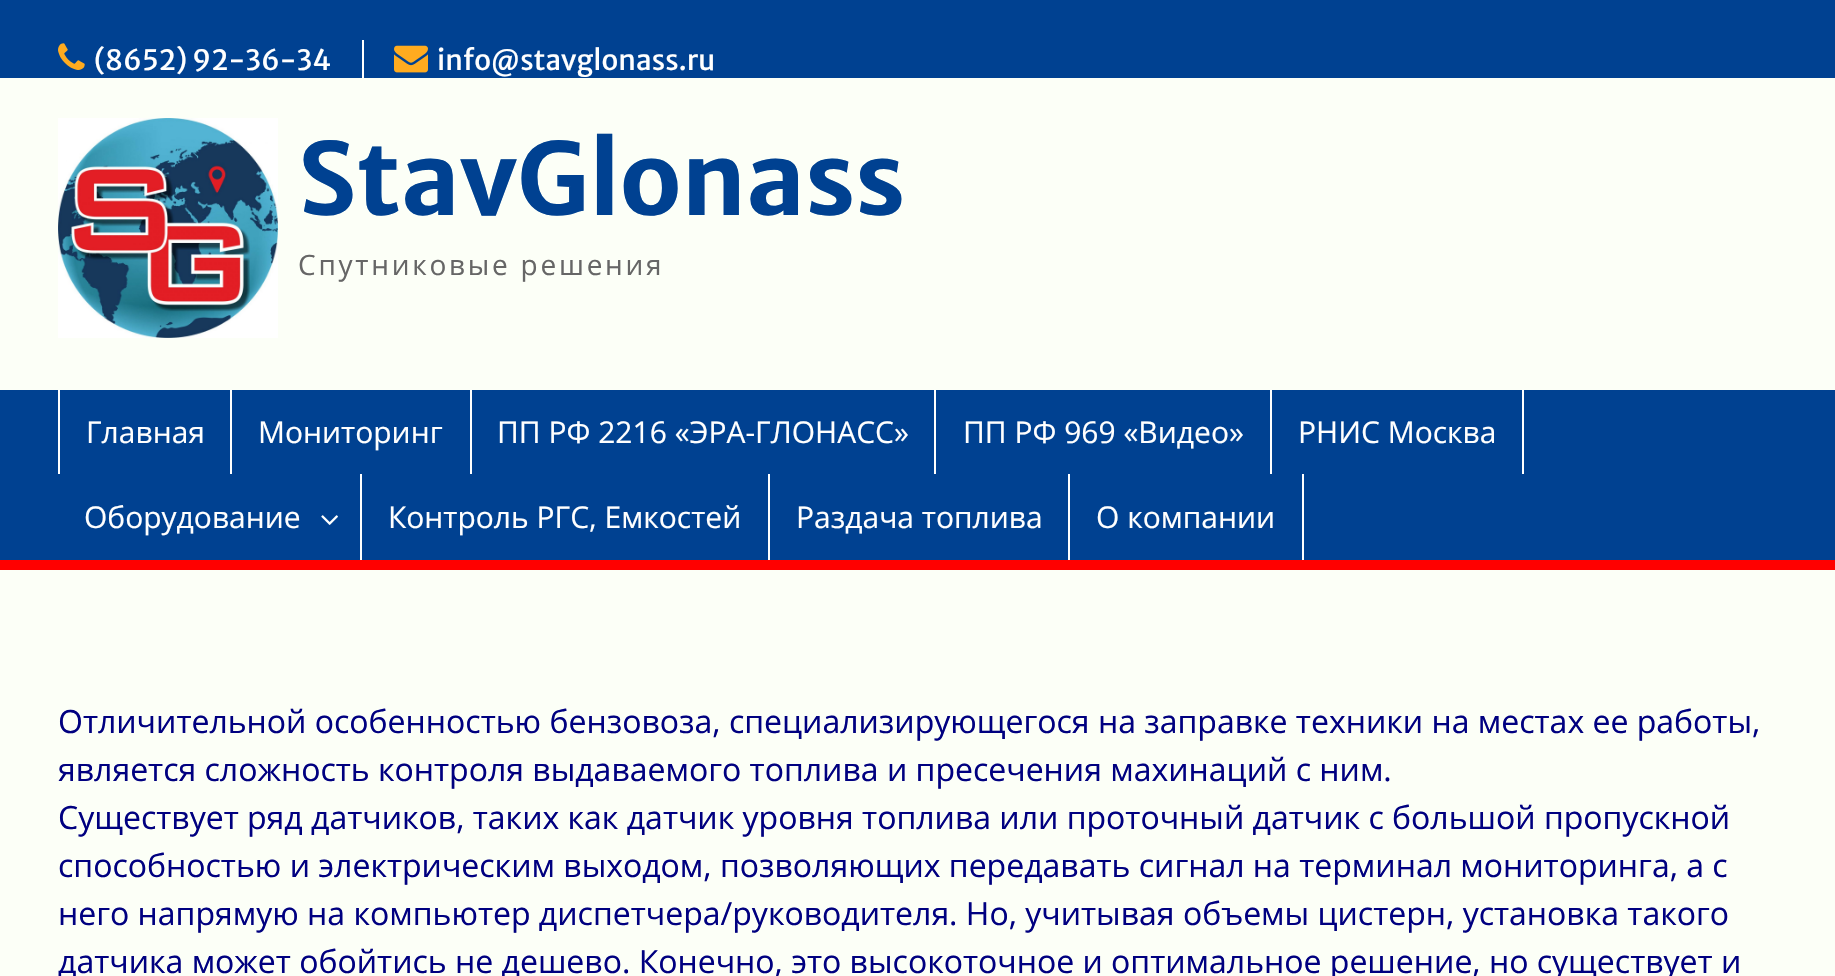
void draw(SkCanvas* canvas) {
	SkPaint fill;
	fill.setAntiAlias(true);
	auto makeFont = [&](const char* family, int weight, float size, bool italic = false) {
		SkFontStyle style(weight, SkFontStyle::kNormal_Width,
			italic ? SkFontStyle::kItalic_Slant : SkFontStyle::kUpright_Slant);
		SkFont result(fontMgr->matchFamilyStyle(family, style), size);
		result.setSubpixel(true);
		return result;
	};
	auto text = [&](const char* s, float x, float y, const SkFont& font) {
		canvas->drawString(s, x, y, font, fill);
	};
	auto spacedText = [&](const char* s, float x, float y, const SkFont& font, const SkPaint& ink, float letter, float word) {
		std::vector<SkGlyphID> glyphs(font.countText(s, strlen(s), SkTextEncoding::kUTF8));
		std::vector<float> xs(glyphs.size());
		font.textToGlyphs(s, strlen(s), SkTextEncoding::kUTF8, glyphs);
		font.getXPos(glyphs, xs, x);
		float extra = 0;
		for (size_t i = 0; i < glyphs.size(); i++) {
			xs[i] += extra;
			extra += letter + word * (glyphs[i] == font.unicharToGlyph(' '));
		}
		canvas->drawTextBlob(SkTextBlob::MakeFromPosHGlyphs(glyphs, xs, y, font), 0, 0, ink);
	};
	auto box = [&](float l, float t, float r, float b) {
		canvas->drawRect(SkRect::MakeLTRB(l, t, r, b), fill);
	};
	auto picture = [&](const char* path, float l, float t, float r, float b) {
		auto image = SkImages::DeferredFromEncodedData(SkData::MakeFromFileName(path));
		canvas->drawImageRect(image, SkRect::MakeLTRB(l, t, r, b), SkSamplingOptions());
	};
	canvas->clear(0xFFFCFFF7);
	fill.setColor(0xFF004191);
	box(0, 0, 1835, 78);
	picture("image0.png", 58, 43, 85, 70);
	fill.setColor(0xFFFFFFFF);
	box(362, 40, 364, 78);
	picture("image1.png", 394, 45, 428, 73);
	picture("image2.png", 58, 118, 278, 338);
	fill.setColor(0xFF004191);
	box(0, 390, 1835, 560);
	fill.setColor(0xFFFF0000);
	box(0, 560, 1835, 570);
	fill.setColor(0xFFFFFFFF);
	box(230, 390, 232, 474);
	box(58, 390, 60, 474);
	box(470, 390, 472, 474);
	box(934, 390, 936, 474);
	box(1270, 390, 1272, 474);
	box(1522, 390, 1524, 474);
	box(360, 474, 362, 560);
	picture("image3.png", 321, 515, 338, 525);
	box(768, 474, 770, 560);
	box(1068, 474, 1070, 560);
	box(1302, 474, 1304, 560);
	auto font1 = makeFont("Merriweather Sans", 400, 28);
	text("(8652) 92-36-34", 94, 70, font1);
	text("info@stavglonass.ru", 437, 70, font1);
	auto font2 = makeFont("Merriweather Sans", 700, 100);
	fill.setColor(0xFF004191);
	text("StavGlonass", 298, 215, font2);
	auto font3 = makeFont("Open Sans", 400, 28);
	fill.setColor(0xFF666666);
	spacedText("Спутниковые решения", 298, 275, font3, fill, 2.75f, 0);
	auto font4 = makeFont("Open Sans", 400, 30);
	fill.setColor(0xFFFFFFFF);
	text("Главная", 86, 443, font4);
	text("Мониторинг", 258, 443, font4);
	text("ПП РФ 2216 «ЭРА-ГЛОНАСС»", 497, 443, font4);
	text("ПП РФ 969 «Видео»", 963, 443, font4);
	text("РНИС Москва", 1298, 443, font4);
	text("Оборудование", 84, 528, font4);
	text("Контроль РГС, Емкостей", 388, 528, font4);
	text("Раздача топлива", 796, 528, font4);
	text("О компании", 1096, 528, font4);
	auto font5 = makeFont("Open Sans", 400, 32);
	fill.setColor(0xFF000080);
	text("Отличительной особенностью бензовоза, специализирующегося на заправке техники на местах ее работы,", 58, 733, font5);
	text("является сложность контроля выдаваемого топлива и пресечения махинаций с ним.", 58, 781, font5);
	text("Существует ряд датчиков, таких как датчик уровня топлива или проточный датчик с большой пропускной", 58, 829, font5);
	text("способностью и электрическим выходом, позволяющих передавать сигнал на терминал мониторинга, а с", 58, 877, font5);
	text("него напрямую на компьютер диспетчера/руководителя. Но, учитывая объемы цистерн, установка такого", 58, 925, font5);
	text("датчика может обойтись не дешево. Конечно, это высокоточное и оптимальное решение, но существует и", 58, 973, font5);
}
